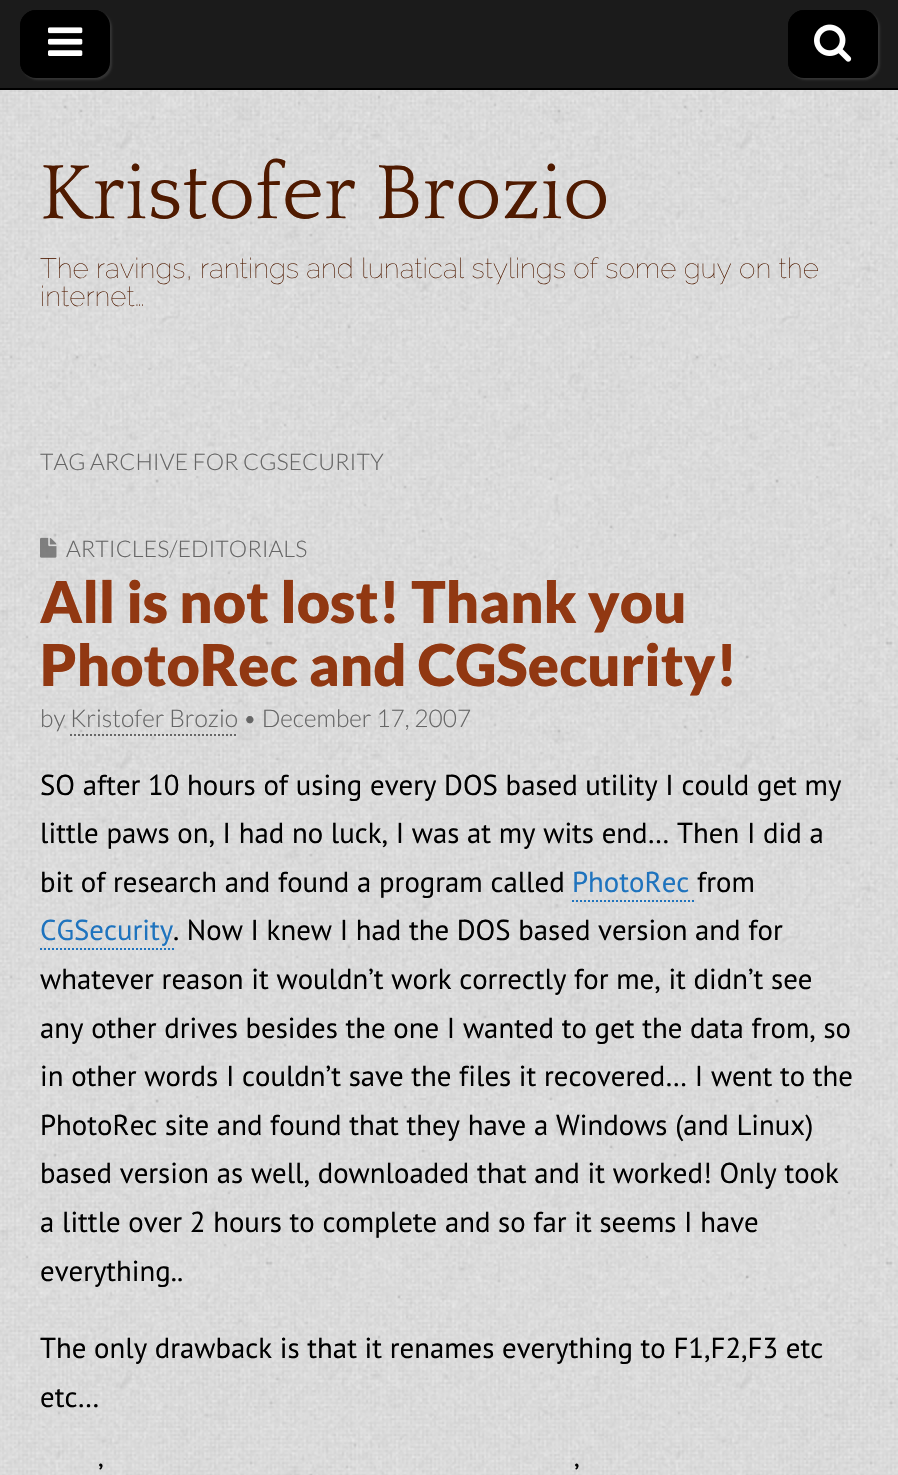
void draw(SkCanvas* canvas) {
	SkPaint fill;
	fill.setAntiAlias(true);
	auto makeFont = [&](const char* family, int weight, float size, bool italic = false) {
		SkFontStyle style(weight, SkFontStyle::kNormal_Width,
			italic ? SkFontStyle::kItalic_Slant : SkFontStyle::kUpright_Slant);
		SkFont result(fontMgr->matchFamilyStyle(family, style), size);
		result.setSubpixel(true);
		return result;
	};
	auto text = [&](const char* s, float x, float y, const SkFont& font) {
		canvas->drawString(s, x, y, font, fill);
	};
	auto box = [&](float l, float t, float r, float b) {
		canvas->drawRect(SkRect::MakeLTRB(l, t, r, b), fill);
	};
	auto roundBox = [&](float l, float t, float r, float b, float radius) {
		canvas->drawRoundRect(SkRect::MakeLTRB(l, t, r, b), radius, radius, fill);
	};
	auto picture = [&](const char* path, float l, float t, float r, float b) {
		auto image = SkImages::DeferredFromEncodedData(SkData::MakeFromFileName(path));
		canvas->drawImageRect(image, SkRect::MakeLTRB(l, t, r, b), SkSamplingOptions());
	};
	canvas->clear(0xFFFFFFFF);
	picture("image0.png", 0, 90, 898, 1475);
	fill.setColor(0xFF1B1B1B);
	box(0, 0, 898, 88);
	fill.setColor(0xFF000000);
	box(0, 88, 898, 90);
	fill.setColor(0xFF333333);
	fill.setMaskFilter(SkMaskFilter::MakeBlur(kNormal_SkBlurStyle, 1));
	canvas->drawRoundRect(SkRect::MakeLTRB(22, 12, 112, 80), 16, 16, fill);
	fill.setMaskFilter(nullptr);
	fill.setColor(0xFF000000);
	roundBox(20, 10, 110, 78, 16);
	canvas->drawPath(SkPathBuilder().moveTo(38, 12).lineTo(96, 12).cubicTo(100, 12, 103, 13, 106, 15).cubicTo(103, 12, 99, 10, 94, 10).lineTo(36, 10).cubicTo(27, 10, 20, 17, 20, 26).lineTo(20, 62).cubicTo(20, 67, 22, 71, 25, 74).cubicTo(23, 71, 22, 68, 22, 64).lineTo(22, 28).cubicTo(22, 19, 29, 12, 38, 12).close().detach(), fill);
	picture("image1.png", 48, 27, 83, 56);
	fill.setColor(0xFF333333);
	fill.setMaskFilter(SkMaskFilter::MakeBlur(kNormal_SkBlurStyle, 1));
	canvas->drawRoundRect(SkRect::MakeLTRB(790, 12, 880, 80), 16, 16, fill);
	fill.setMaskFilter(nullptr);
	fill.setColor(0xFF000000);
	roundBox(788, 10, 878, 78, 16);
	canvas->drawPath(SkPathBuilder().moveTo(806, 12).lineTo(864, 12).cubicTo(868, 12, 871, 13, 874, 15).cubicTo(871, 12, 867, 10, 862, 10).lineTo(804, 10).cubicTo(795, 10, 788, 17, 788, 26).lineTo(788, 62).cubicTo(788, 67, 790, 71, 793, 74).cubicTo(791, 71, 790, 68, 790, 64).lineTo(790, 28).cubicTo(790, 19, 797, 12, 806, 12).close().detach(), fill);
	picture("image2.png", 814, 24, 852, 62);
	picture("image3.png", 40, 537, 57, 558);
	fill.setStyle(SkPaint::kStroke_Style);
	fill.setStrokeWidth(2);
	fill.setColor(0xFF666666);
	fill.setPathEffect(SkDashPathEffect::Make({{2, 2}}, 0));
	canvas->drawPath(SkPathBuilder().moveTo(70, 735).lineTo(238, 735).detach(), fill);
	fill.setPathEffect(nullptr);
	fill.setColor(0xFF1E73BE);
	fill.setPathEffect(SkDashPathEffect::Make({{2, 2}}, 0));
	canvas->drawPath(SkPathBuilder().moveTo(572, 901).lineTo(696, 901).detach(), fill);
	fill.setPathEffect(nullptr);
	fill.setPathEffect(SkDashPathEffect::Make({{2, 2}}, 0));
	canvas->drawPath(SkPathBuilder().moveTo(40, 949).lineTo(174, 949).detach(), fill);
	fill.setPathEffect(nullptr);
	auto font1 = makeFont("Quattrocento", 400, 80);
	fill.setStyle(SkPaint::kFill_Style);
	fill.setColor(0xFF4F1A00);
	text("Kristofer Brozio", 40, 218, font1);
	auto font2 = makeFont("Raleway", 100, 28);
	text("The ravings, rantings and lunatical stylings of some guy on the", 40, 278, font2);
	text("internet…", 40, 306, font2);
	auto font3 = makeFont("Lato", 300, 23);
	fill.setColor(0xFF666666);
	text("TAG ARCHIVE FOR CGSECURITY", 40, 470, font3);
	text("ARTICLES/EDITORIALS", 66, 557, font3);
	auto font4 = makeFont("Lato", 900, 57.6f);
	fill.setColor(0xFF913812);
	text("All is not lost! Thank you", 40, 623, font4);
	text("PhotoRec and CGSecurity!", 40, 686, font4);
	auto font5 = makeFont("Lato", 300, 24.5f);
	fill.setColor(0xFF666666);
	text("by Kristofer Brozio • December 17, 2007", 40, 727, font5);
	auto font6 = makeFont("PT Sans", 400, 28.8f);
	fill.setColor(0xFF000000);
	text("SO after 10 hours of using every DOS based utility I could get my", 40, 795, font6);
	text("little paws on, I had no luck, I was at my wits end… Then I did a", 40, 843, font6);
	text("bit of research and found a program called", 40, 892, font6);
	fill.setColor(0xFF1E73BE);
	text("PhotoRec", 572, 892, font6);
	fill.setColor(0xFF000000);
	text("from", 697, 892, font6);
	fill.setColor(0xFF1E73BE);
	text("CGSecurity", 40, 940, font6);
	fill.setColor(0xFF000000);
	text(". Now I knew I had the DOS based version and for", 173, 940, font6);
	text("whatever reason it wouldn’t work correctly for me, it didn’t see", 40, 989, font6);
	text("any other drives besides the one I wanted to get the data from, so", 40, 1038, font6);
	text("in other words I couldn’t save the files it recovered… I went to the", 40, 1086, font6);
	text("PhotoRec site and found that they have a Windows (and Linux)", 40, 1135, font6);
	text("based version as well, downloaded that and it worked! Only took", 40, 1183, font6);
	text("a little over 2 hours to complete and so far it seems I have", 40, 1232, font6);
	text("everything..", 40, 1281, font6);
	text("The only drawback is that it renames everything to F1,F2,F3 etc", 40, 1358, font6);
	text("etc…", 40, 1407, font6);
	text("’", 98, 1484, font6);
	text("’", 574, 1484, font6);
}
